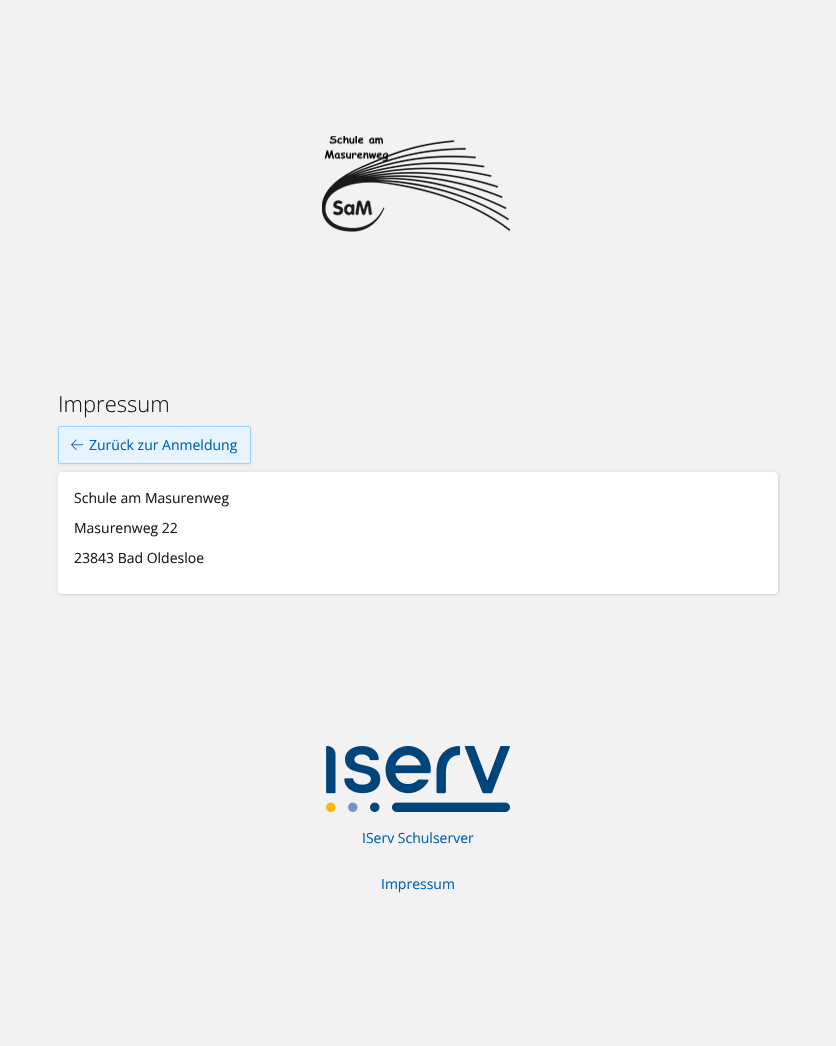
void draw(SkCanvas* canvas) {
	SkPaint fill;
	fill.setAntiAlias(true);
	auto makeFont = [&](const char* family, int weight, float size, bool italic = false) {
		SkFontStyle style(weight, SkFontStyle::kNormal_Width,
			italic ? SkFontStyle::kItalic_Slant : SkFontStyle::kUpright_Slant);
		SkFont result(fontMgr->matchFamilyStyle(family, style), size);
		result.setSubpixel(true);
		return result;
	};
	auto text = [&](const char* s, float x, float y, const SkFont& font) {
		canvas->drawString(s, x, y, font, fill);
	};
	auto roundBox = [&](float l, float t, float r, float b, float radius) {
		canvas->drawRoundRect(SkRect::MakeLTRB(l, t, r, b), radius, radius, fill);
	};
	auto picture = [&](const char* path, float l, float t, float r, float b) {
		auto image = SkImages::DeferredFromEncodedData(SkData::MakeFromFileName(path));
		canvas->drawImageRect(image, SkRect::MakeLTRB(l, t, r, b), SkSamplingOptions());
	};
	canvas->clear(0xFFF2F2F2);
	picture("image0.png", 322, 136, 510, 232);
	fill.setColor(0x14000000);
	fill.setMaskFilter(SkMaskFilter::MakeBlur(kNormal_SkBlurStyle, 1.5f));
	canvas->drawRoundRect(SkRect::MakeLTRB(58, 427, 251, 465), 2, 2, fill);
	fill.setMaskFilter(nullptr);
	fill.setColor(0xFFE6F4FF);
	canvas->drawRoundRect(SkRect::MakeLTRB(58.5f, 426.5f, 250.5f, 463.5f), 1.5f, 1.5f, fill);
	fill.setStyle(SkPaint::kStroke_Style);
	fill.setStrokeWidth(1);
	fill.setColor(0xFF99D1FF);
	canvas->drawRoundRect(SkRect::MakeLTRB(58.5f, 426.5f, 250.5f, 463.5f), 1.5f, 1.5f, fill);
	picture("image1.png", 71, 439, 84, 450);
	fill.setStyle(SkPaint::kFill_Style);
	fill.setColor(0x14000000);
	fill.setMaskFilter(SkMaskFilter::MakeBlur(kNormal_SkBlurStyle, 2));
	canvas->drawRoundRect(SkRect::MakeLTRB(58, 472, 778, 594), 4, 4, fill);
	fill.setMaskFilter(nullptr);
	fill.setMaskFilter(SkMaskFilter::MakeBlur(kNormal_SkBlurStyle, 1));
	canvas->drawRoundRect(SkRect::MakeLTRB(59, 473, 779, 595), 4, 4, fill);
	fill.setMaskFilter(nullptr);
	fill.setColor(0xFFFFFFFF);
	roundBox(58, 472, 778, 594, 4);
	picture("image2.png", 326, 746, 510, 812);
	auto font1 = makeFont("Open Sans", 300, 22);
	fill.setColor(0xFF1A1A1A);
	text("Impressum", 58, 412, font1);
	auto font2 = makeFont("Open Sans", 400, 14);
	fill.setColor(0xFF0062B3);
	text("Zurück zur Anmeldung", 89, 450, font2);
	fill.setColor(0xFF1A1A1A);
	text("Schule am Masurenweg", 74, 503, font2);
	text("Masurenweg 22", 74, 533, font2);
	text("23843 Bad Oldesloe", 74, 563, font2);
	fill.setColor(0xFF0062B3);
	text("IServ Schulserver", 362, 843, font2);
	text("Impressum", 381, 889, font2);
}
